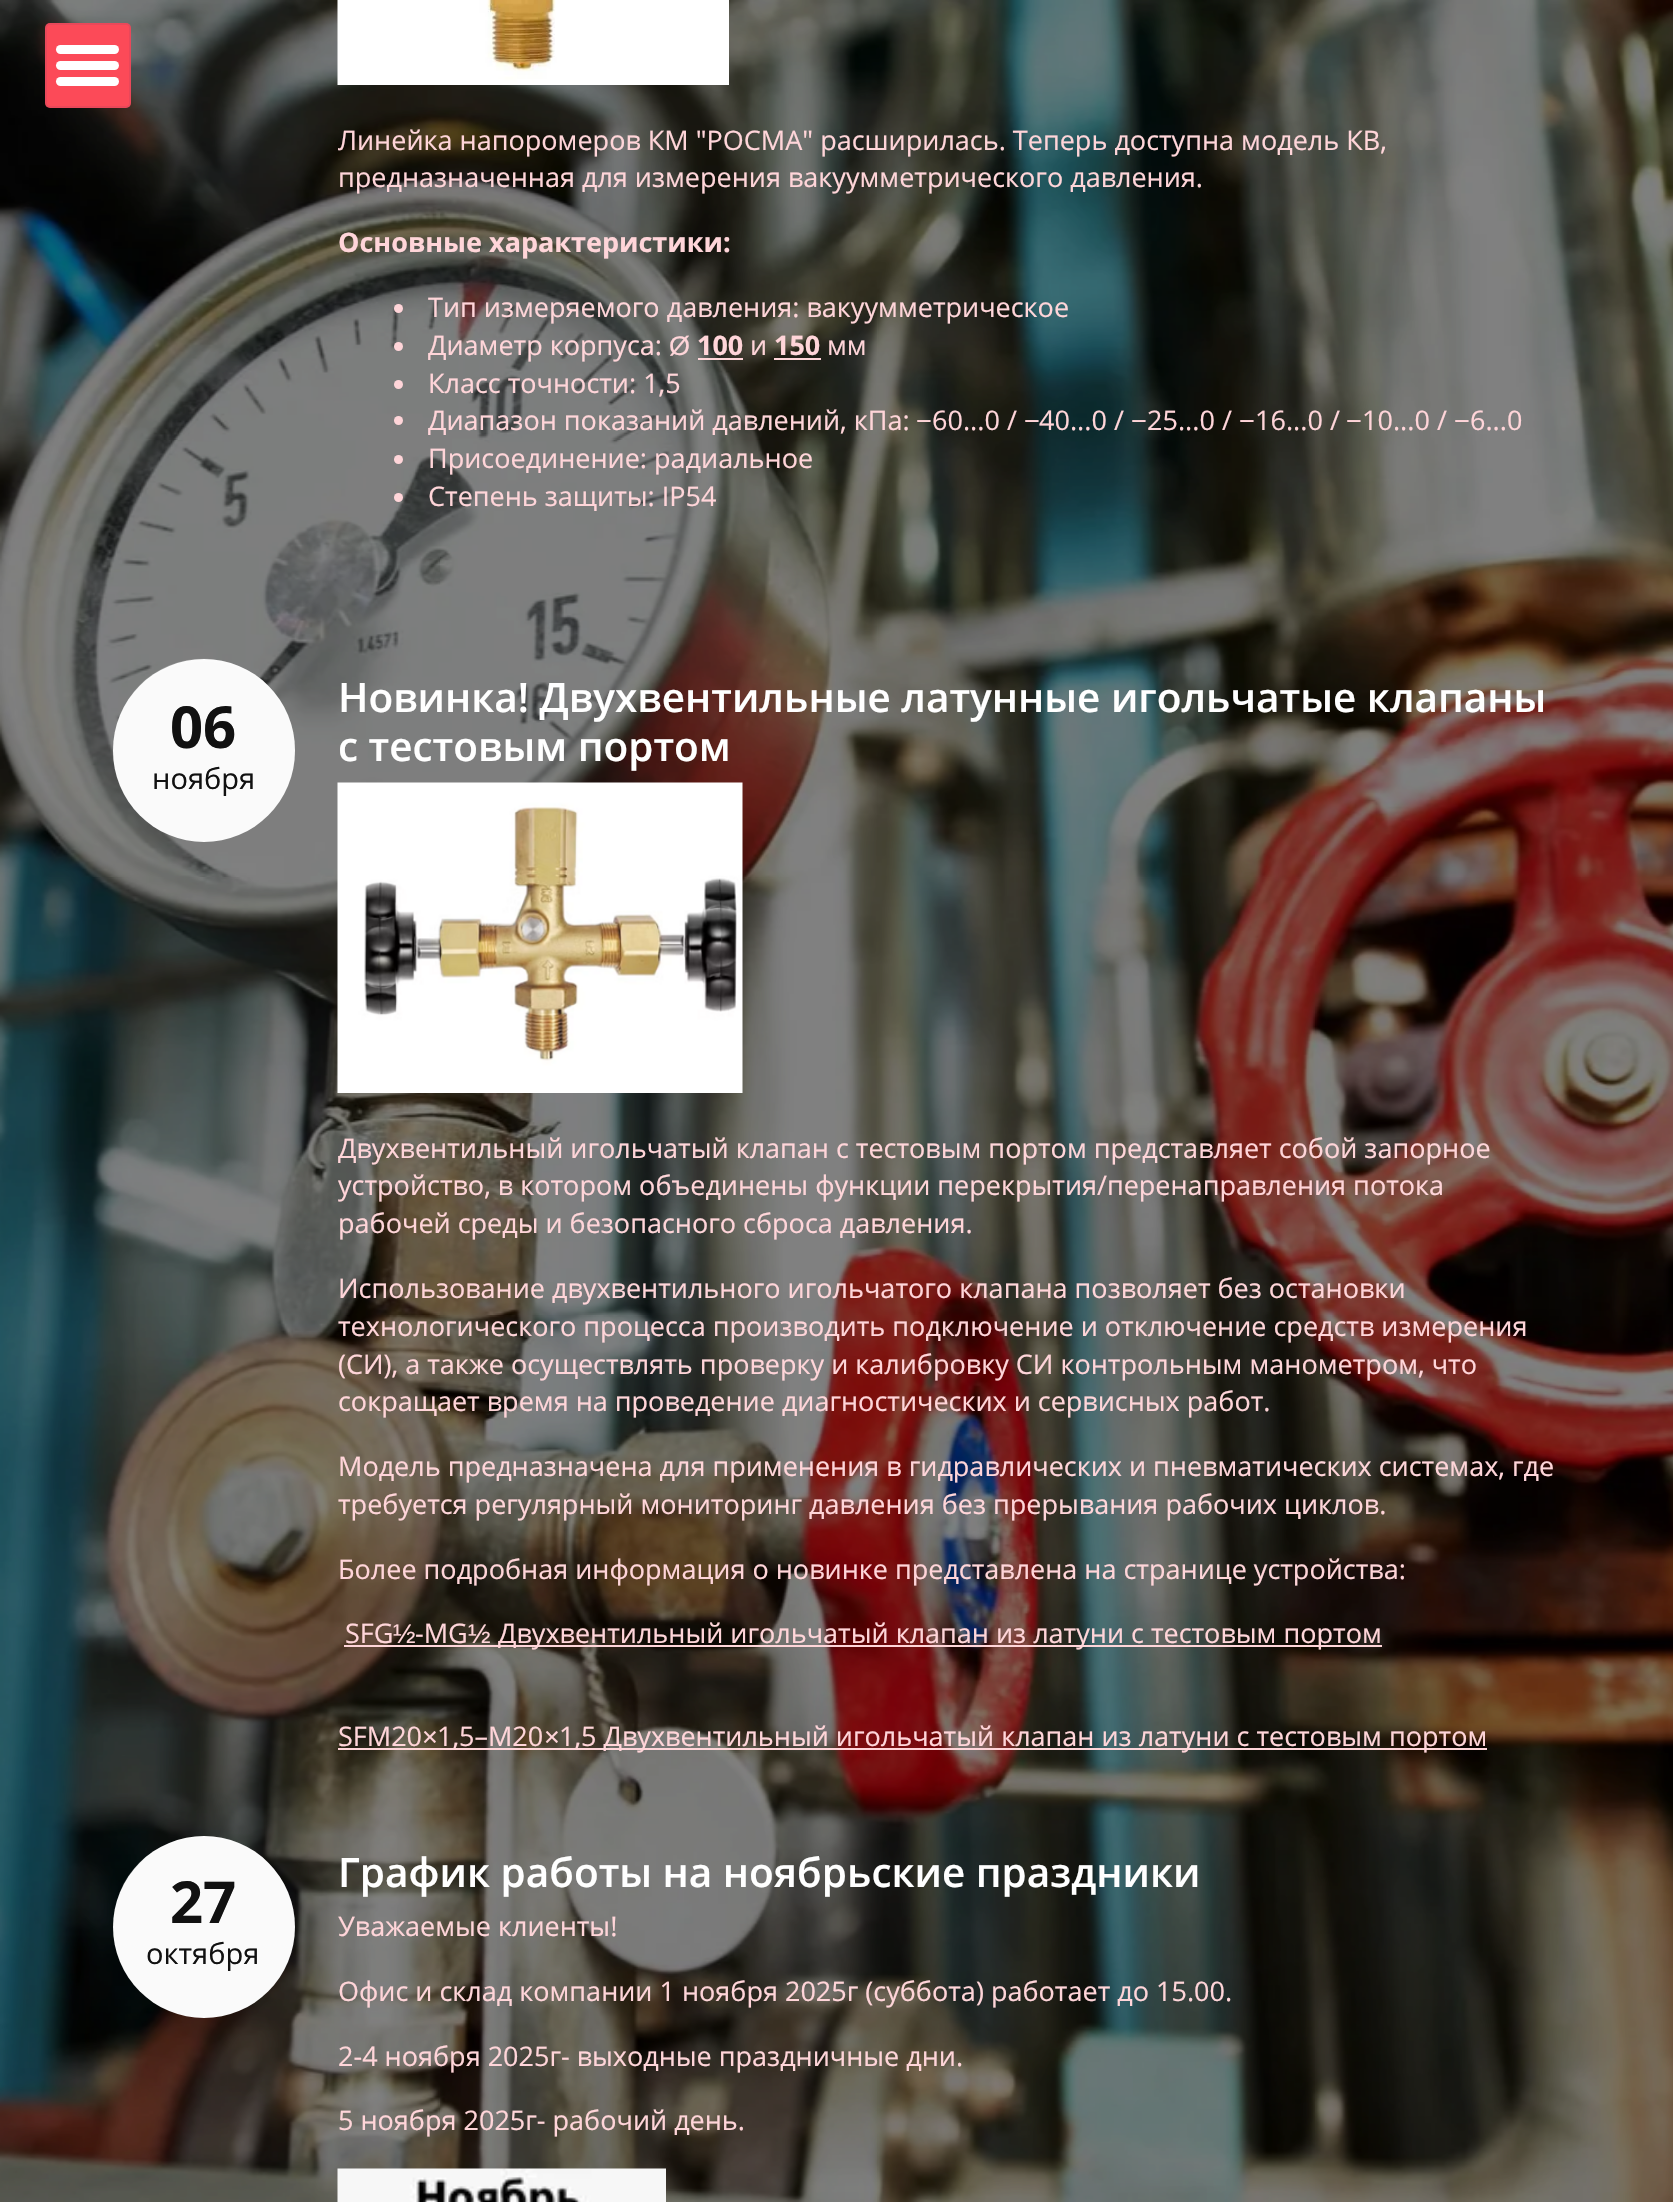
void draw(SkCanvas* canvas) {
	SkPaint fill;
	fill.setAntiAlias(true);
	auto makeFont = [&](const char* family, int weight, float size, bool italic = false) {
		SkFontStyle style(weight, SkFontStyle::kNormal_Width,
			italic ? SkFontStyle::kItalic_Slant : SkFontStyle::kUpright_Slant);
		SkFont result(fontMgr->matchFamilyStyle(family, style), size);
		result.setSubpixel(true);
		return result;
	};
	auto text = [&](const char* s, float x, float y, const SkFont& font) {
		canvas->drawString(s, x, y, font, fill);
	};
	auto box = [&](float l, float t, float r, float b) {
		canvas->drawRect(SkRect::MakeLTRB(l, t, r, b), fill);
	};
	auto roundBox = [&](float l, float t, float r, float b, float radius) {
		canvas->drawRoundRect(SkRect::MakeLTRB(l, t, r, b), radius, radius, fill);
	};
	auto picture = [&](const char* path, float l, float t, float r, float b) {
		auto image = SkImages::DeferredFromEncodedData(SkData::MakeFromFileName(path));
		canvas->drawImageRect(image, SkRect::MakeLTRB(l, t, r, b), SkSamplingOptions());
	};
	canvas->clear(0xFFFFFFFF);
	picture("image0.png", 0, 0, 1673, 2202);
	fill.setColor(0xFFFC4A58);
	roundBox(45, 23, 131, 108, 5);
	fill.setStyle(SkPaint::kStroke_Style);
	fill.setStrokeWidth(2);
	fill.setColor(0x1C4E3466);
	canvas->drawRoundRect(SkRect::MakeLTRB(46, 24, 130, 107), 4, 4, fill);
	fill.setStyle(SkPaint::kFill_Style);
	fill.setColor(0xFFFFFFFF);
	roundBox(56, 45, 119, 54, 4.5f);
	roundBox(56, 61, 119, 70, 4.5f);
	roundBox(56, 77, 119, 86, 4.5f);
	picture("image1.png", 337, 0, 729, 85);
	fill.setColor(0xFFFFD5D9);
	canvas->drawCircle(398.5f, 308.5f, 4.5f, fill);
	canvas->drawCircle(398.5f, 346.5f, 4.5f, fill);
	box(698, 358, 743, 360);
	box(774, 358, 821, 360);
	canvas->drawCircle(398.5f, 384.5f, 4.5f, fill);
	canvas->drawCircle(398.5f, 420.5f, 4.5f, fill);
	canvas->drawCircle(398.5f, 459.5f, 4.5f, fill);
	canvas->drawCircle(398.5f, 497.5f, 4.5f, fill);
	fill.setColor(0xFFFAFAFA);
	roundBox(113, 659, 295, 842, 91);
	fill.setColor(0x2EFFFFFF);
	canvas->drawPath(SkPathBuilder().moveTo(204, 662).cubicTo(254, 662, 294, 701, 295, 752).cubicTo(296, 677, 211, 632, 150, 676).cubicTo(135, 687, 124, 703, 118, 721).cubicTo(131, 686, 164, 662, 204, 662).close().detach(), fill);
	picture("image2.png", 337, 782, 743, 1093);
	fill.setColor(0xFFFFD5D9);
	box(344, 1645, 1382, 1647);
	box(338, 1748, 1487, 1750);
	fill.setColor(0xFFFAFAFA);
	canvas->drawCircle(204, 1927, 91, fill);
	fill.setColor(0x2EFFFFFF);
	canvas->drawPath(SkPathBuilder().moveTo(204, 1838).cubicTo(254, 1838, 294, 1878, 295, 1928).cubicTo(295, 1910, 290, 1891, 279, 1876).cubicTo(239, 1816, 148, 1826, 120, 1891).cubicTo(135, 1860, 167, 1838, 204, 1838).close().detach(), fill);
	picture("image3.png", 337, 2168, 666, 2202);
	auto font1 = makeFont("Open Sans", 400, 27);
	fill.setColor(0xFFFFD5D9);
	text("Линейка напоромеров КМ \"РОСМА\" расширилась. Теперь доступна модель КВ,", 338, 150, font1);
	text("предназначенная для измерения вакуумметрического давления.", 338, 187, font1);
	auto font2 = makeFont("Open Sans", 700, 27);
	text("Основные характеристики:", 338, 252, font2);
	text("Тип измеряемого давления: вакуумметрическое", 428, 317, font1);
	text("Диаметр корпуса:", 428, 355, font1);
	auto font3 = makeFont("Liberation Sans", 400, 27);
	text("Ø", 669, 355, font3);
	text("100", 697, 355, font2);
	text("и", 750, 355, font1);
	text("150", 774, 355, font2);
	text("мм", 827, 355, font1);
	text("Класс точности: 1,5", 428, 393, font1);
	text("Диапазон показаний давлений, кПа:", 428, 430, font1);
	text("−", 916, 430, font3);
	text("60...0 /", 932, 430, font1);
	text("−", 1024, 430, font3);
	text("40...0 /", 1039, 430, font1);
	text("−", 1131, 430, font3);
	text("25...0 /", 1147, 430, font1);
	text("−", 1239, 430, font3);
	text("16...0 /", 1255, 430, font1);
	text("−", 1346, 430, font3);
	text("10...0 /", 1362, 430, font1);
	text("−", 1454, 430, font3);
	text("6...0", 1470, 430, font1);
	text("Присоединение: радиальное", 428, 468, font1);
	text("Степень защиты: IP54", 428, 506, font1);
	auto font4 = makeFont("Open Sans", 700, 58);
	fill.setColor(0xFF111111);
	text("06", 170, 748, font4);
	auto font5 = makeFont("Open Sans", 400, 29);
	text("ноября", 152, 789, font5);
	auto font6 = makeFont("Open Sans", 600, 40.5f);
	fill.setColor(0xFFFFFFFF);
	text("Новинка! Двухвентильные латунные игольчатые клапаны", 338, 712, font6);
	text("с тестовым портом", 338, 761, font6);
	fill.setColor(0xFFFFD5D9);
	text("Двухвентильный игольчатый клапан с тестовым портом представляет собой запорное", 338, 1158, font1);
	text("устройство, в котором объединены функции перекрытия/перенаправления потока", 338, 1195, font1);
	text("рабочей среды и безопасного сброса давления.", 338, 1233, font1);
	text("Использование двухвентильного игольчатого клапана позволяет без остановки", 338, 1298, font1);
	text("технологического процесса производить подключение и отключение средств измерения", 338, 1336, font1);
	text("(СИ), а также осуществлять проверку и калибровку СИ контрольным манометром, что", 338, 1374, font1);
	text("сокращает время на проведение диагностических и сервисных работ.", 338, 1411, font1);
	text("Модель предназначена для применения в гидравлических и пневматических системах, где", 338, 1476, font1);
	text("требуется регулярный мониторинг давления без прерывания рабочих циклов.", 338, 1514, font1);
	text("Более подробная информация о новинке представлена на странице устройства:", 338, 1579, font1);
	text("SFG", 345, 1643, font1);
	text("½", 393, 1643, font3);
	text("-MG", 415, 1643, font1);
	text("½", 468, 1643, font3);
	text("Двухвентильный игольчатый клапан из латуни с тестовым портом", 498, 1643, font1);
	text("SFМ20", 338, 1746, font1);
	text("×", 422, 1746, font3);
	text("1,5–M20", 437, 1746, font1);
	text("×", 544, 1746, font3);
	text("1,5 Двухвентильный игольчатый клапан из латуни с тестовым портом", 559, 1746, font1);
	fill.setColor(0xFF111111);
	text("27", 170, 1923, font4);
	text("октября", 146, 1964, font5);
	fill.setColor(0xFFFFFFFF);
	text("График работы на ноябрьские праздники", 338, 1887, font6);
	fill.setColor(0xFFFFD5D9);
	text("Уважаемые клиенты!", 338, 1936, font1);
	text("Офис и склад компании 1 ноября 2025г (суббота) работает до 15.00.", 338, 2001, font1);
	text("2-4 ноября 2025г- выходные праздничные дни.", 338, 2066, font1);
	text("5 ноября 2025г- рабочий день.", 338, 2130, font1);
}
